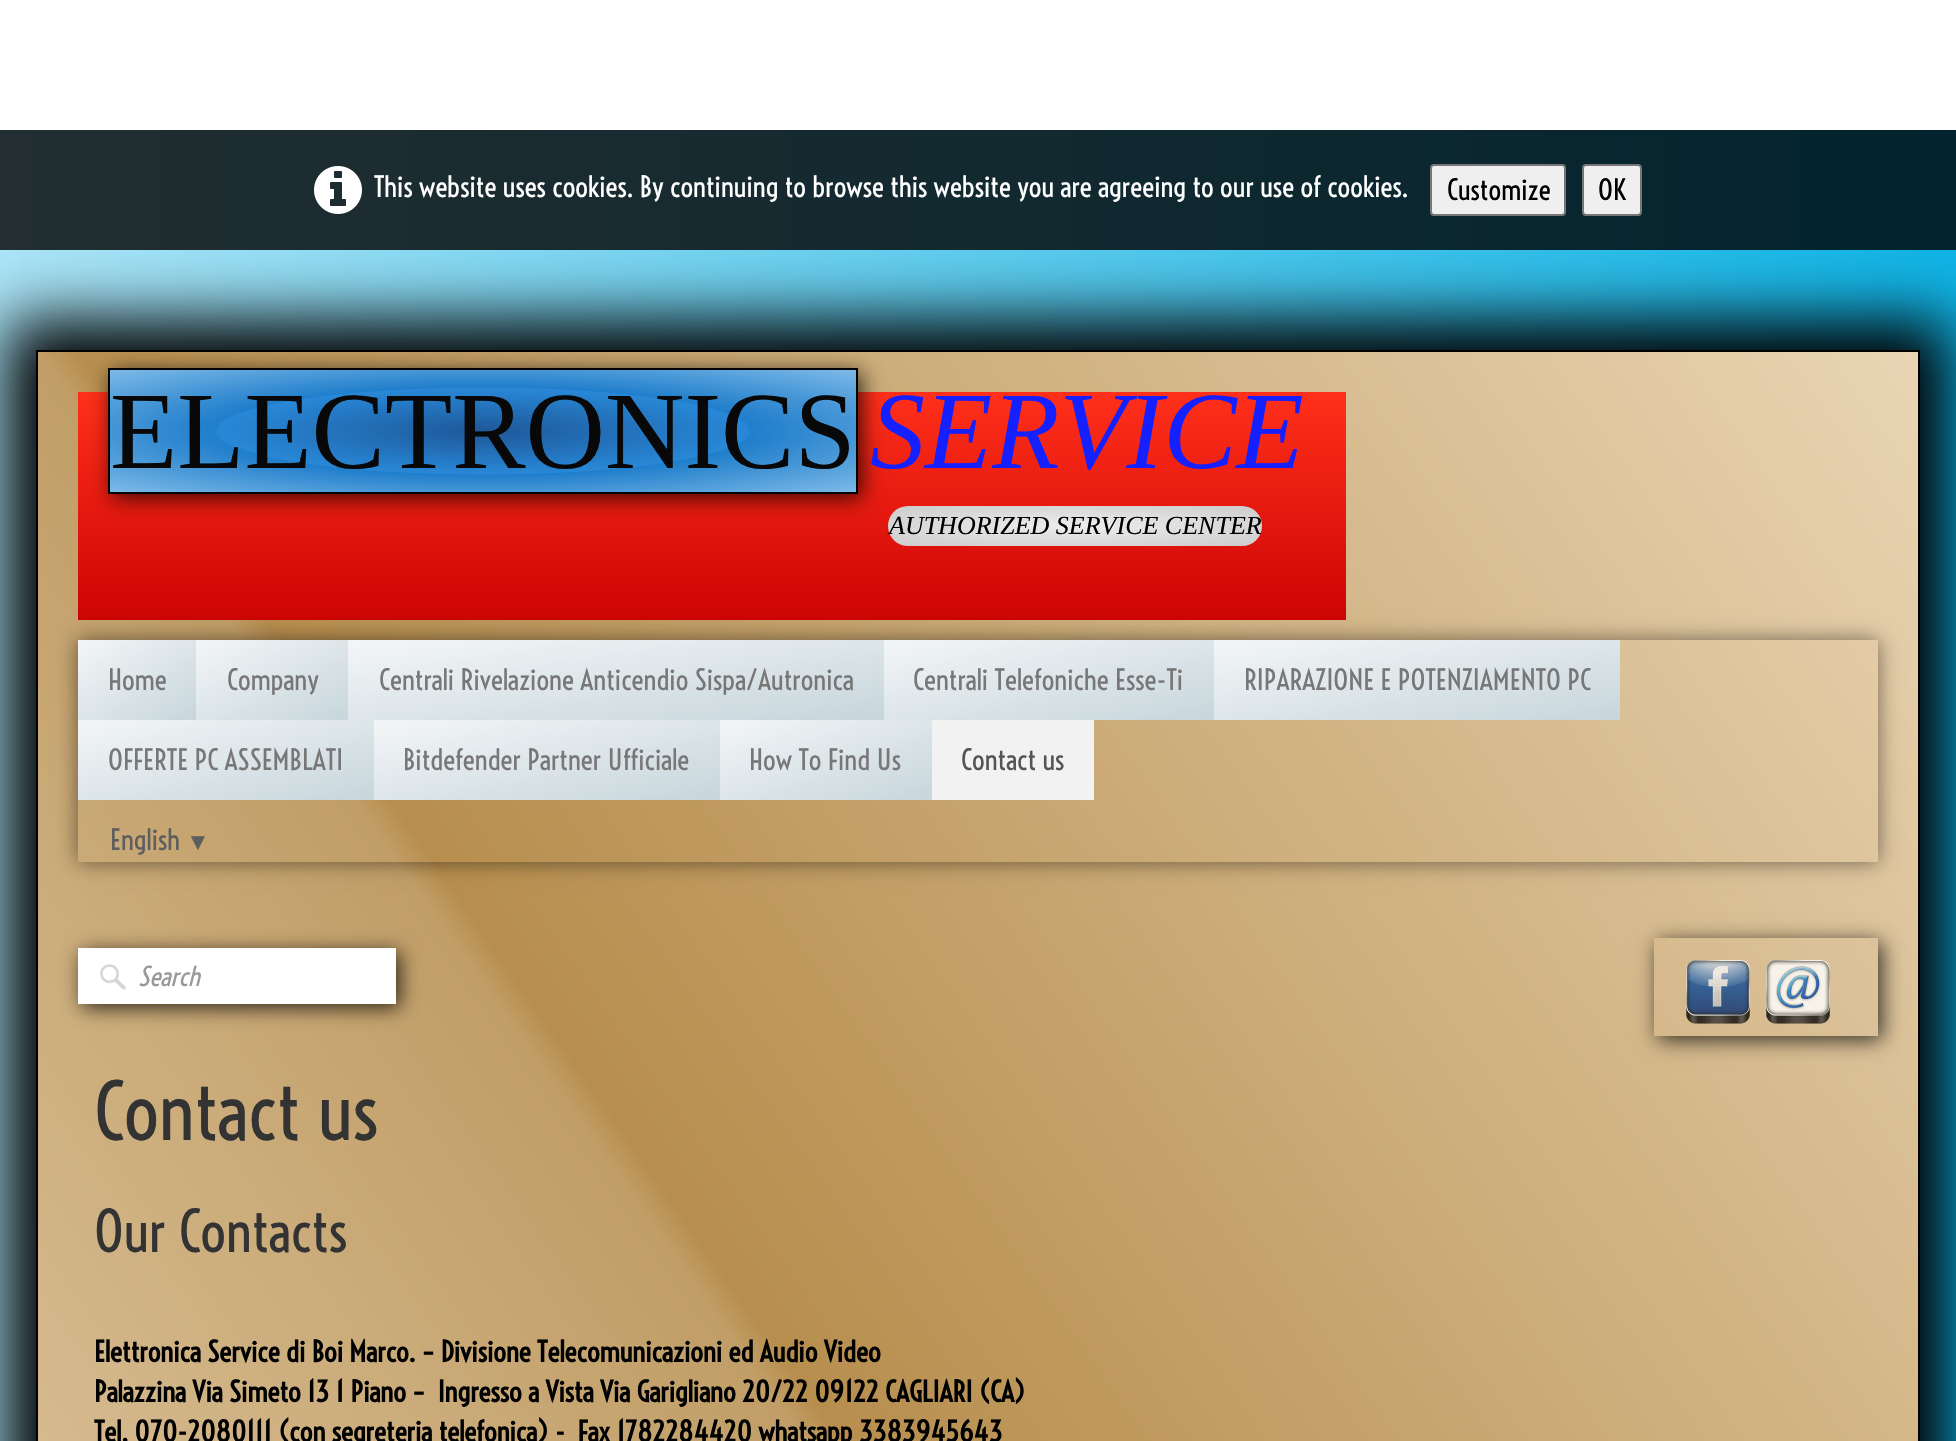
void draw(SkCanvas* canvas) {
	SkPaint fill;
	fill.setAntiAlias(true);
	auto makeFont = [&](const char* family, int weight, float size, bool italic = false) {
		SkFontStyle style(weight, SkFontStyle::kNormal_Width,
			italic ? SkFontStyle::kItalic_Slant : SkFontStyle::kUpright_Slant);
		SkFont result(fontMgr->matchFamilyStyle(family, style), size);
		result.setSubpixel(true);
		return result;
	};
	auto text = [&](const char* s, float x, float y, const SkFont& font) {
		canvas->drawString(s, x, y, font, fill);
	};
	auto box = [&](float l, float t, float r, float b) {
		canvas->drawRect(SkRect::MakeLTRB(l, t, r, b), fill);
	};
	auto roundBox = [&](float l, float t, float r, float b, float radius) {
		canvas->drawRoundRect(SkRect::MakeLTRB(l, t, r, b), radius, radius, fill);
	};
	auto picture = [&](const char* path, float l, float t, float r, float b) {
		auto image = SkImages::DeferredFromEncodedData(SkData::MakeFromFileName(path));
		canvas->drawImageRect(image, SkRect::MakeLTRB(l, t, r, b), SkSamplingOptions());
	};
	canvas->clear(0xFFFFFFFF);
	{
		const SkColor colors[] = {0xFFABE5F7, 0xFF0FB4E6};
		const float stops[] = {0, 1};
		const SkPoint ends[] = {{0, 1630}, {1956, 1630}};
		fill.setShader(SkGradientShader::MakeLinear(ends, colors, stops, 2, SkTileMode::kClamp));
		fill.setAlpha(255);
	}
	box(0, 250, 1956, 1441);
	{
		const SkColor colors[] = {0xFF222E31, 0xFF03242E};
		const float stops[] = {0, 1};
		const SkPoint ends[] = {{0, 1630}, {1956, 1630}};
		fill.setShader(SkGradientShader::MakeLinear(ends, colors, stops, 2, SkTileMode::kClamp));
		fill.setAlpha(255);
	}
	box(0, 130, 1956, 250);
	picture("image0.png", 314, 166, 362, 214);
	fill.setShader(nullptr);
	fill.setColor(0xFFEFEFEF);
	canvas->drawRoundRect(SkRect::MakeLTRB(1431, 165, 1565, 215), 3, 3, fill);
	fill.setStyle(SkPaint::kStroke_Style);
	fill.setStrokeWidth(2);
	fill.setColor(0xFF767676);
	canvas->drawRoundRect(SkRect::MakeLTRB(1431, 165, 1565, 215), 3, 3, fill);
	fill.setStyle(SkPaint::kFill_Style);
	fill.setColor(0xFFEFEFEF);
	canvas->drawRoundRect(SkRect::MakeLTRB(1583, 165, 1641, 215), 3, 3, fill);
	fill.setStyle(SkPaint::kStroke_Style);
	fill.setColor(0xFF767676);
	canvas->drawRoundRect(SkRect::MakeLTRB(1583, 165, 1641, 215), 3, 3, fill);
	fill.setStyle(SkPaint::kFill_Style);
	fill.setColor(0xFF000000);
	fill.setMaskFilter(SkMaskFilter::MakeBlur(kNormal_SkBlurStyle, 30));
	canvas->drawRect(SkRect::MakeLTRB(6, 320, 1950, 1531), fill);
	fill.setMaskFilter(nullptr);
	{
		const SkColor colors[] = {0xFFF3E3C8, 0xFFC19E67, 0xFFB78E4E, 0xFFE9D5B4};
		const float stops[] = {0, 0.5f, 0.51f, 1};
		const SkPoint ends[] = {{-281, 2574}, {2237, 806}};
		fill.setShader(SkGradientShader::MakeLinear(ends, colors, stops, 4, SkTileMode::kClamp));
		fill.setAlpha(255);
	}
	box(38, 352, 1918, 1441);
	fill.setStyle(SkPaint::kStroke_Style);
	fill.setShader(nullptr);
	fill.setColor(0xFF000000);
	canvas->drawRect(SkRect::MakeLTRB(37, 351, 1919, 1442), fill);
	fill.setStyle(SkPaint::kFill_Style);
	{
		const SkColor colors[] = {0xFFFF301A, 0xFFCD0404};
		const float stops[] = {0, 1};
		const SkPoint ends[] = {{712, 392}, {712, 620}};
		fill.setShader(SkGradientShader::MakeLinear(ends, colors, stops, 2, SkTileMode::kClamp));
		fill.setAlpha(255);
	}
	box(78, 392, 1346, 620);
	{
		const SkColor colors[] = {0xFFEDEDED, 0xFFCCCCCC};
		const float stops[] = {0, 1};
		SkMatrix m = SkMatrix::Translate(1075, 526).preScale(264, 28);
		fill.setShader(SkGradientShader::MakeRadial({0, 0}, 1, colors, stops, 2, SkTileMode::kClamp, 0, &m));
		fill.setAlpha(255);
	}
	roundBox(888, 506, 1262, 546, 20);
	fill.setShader(nullptr);
	fill.setColor(0xBF000000);
	fill.setMaskFilter(SkMaskFilter::MakeBlur(kNormal_SkBlurStyle, 10));
	canvas->drawRect(SkRect::MakeLTRB(112, 372, 862, 498), fill);
	fill.setMaskFilter(nullptr);
	{
		const SkColor colors[] = {0xFF1E5899, 0xFF2888D7, 0xFF207ECB, 0xFF7DBAE8};
		const float stops[] = {0, 0.5f, 0.51f, 1};
		SkMatrix m = SkMatrix::Translate(483, 431).preScale(528, 86);
		fill.setShader(SkGradientShader::MakeRadial({0, 0}, 1, colors, stops, 4, SkTileMode::kClamp, 0, &m));
		fill.setAlpha(255);
	}
	box(110, 370, 856, 492);
	fill.setStyle(SkPaint::kStroke_Style);
	fill.setShader(nullptr);
	fill.setColor(0xFF000000);
	canvas->drawRect(SkRect::MakeLTRB(109, 369, 857, 493), fill);
	canvas->save();
	canvas->clipPath(SkPathBuilder(SkPathFillType::kEvenOdd).moveTo(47, 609).lineTo(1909, 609).lineTo(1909, 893).lineTo(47, 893).close().moveTo(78, 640).lineTo(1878, 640).lineTo(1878, 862).lineTo(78, 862).close().detach(), true);
	fill.setStyle(SkPaint::kFill_Style);
	fill.setColor(0x80000000);
	fill.setMaskFilter(SkMaskFilter::MakeBlur(kNormal_SkBlurStyle, 10));
	canvas->drawRect(SkRect::MakeLTRB(78, 640, 1878, 862), fill);
	fill.setMaskFilter(nullptr);
	canvas->restore();
	{
		const SkColor colors[] = {0xFFF3F6F7, 0xFFE3EAED, 0xFFC7D6DB};
		const float stops[] = {0, 0.37f, 1};
		const SkPoint ends[] = {{100, 625}, {174, 735}};
		fill.setShader(SkGradientShader::MakeLinear(ends, colors, stops, 3, SkTileMode::kClamp));
		fill.setAlpha(255);
	}
	box(78, 640, 196, 720);
	{
		const SkColor colors[] = {0xFFF3F6F7, 0xFFE3EAED, 0xFFC7D6DB};
		const float stops[] = {0, 0.37f, 1};
		const SkPoint ends[] = {{239, 617}, {305, 743}};
		fill.setShader(SkGradientShader::MakeLinear(ends, colors, stops, 3, SkTileMode::kClamp));
		fill.setAlpha(255);
	}
	box(196, 640, 348, 720);
	{
		const SkColor colors[] = {0xFFF3F6F7, 0xFFE3EAED, 0xFFC7D6DB};
		const float stops[] = {0, 0.37f, 1};
		const SkPoint ends[] = {{604, 602}, {628, 758}};
		fill.setShader(SkGradientShader::MakeLinear(ends, colors, stops, 3, SkTileMode::kClamp));
		fill.setAlpha(255);
	}
	box(348, 640, 884, 720);
	{
		const SkColor colors[] = {0xFFF3F6F7, 0xFFE3EAED, 0xFFC7D6DB};
		const float stops[] = {0, 0.37f, 1};
		const SkPoint ends[] = {{1031, 604}, {1067, 756}};
		fill.setShader(SkGradientShader::MakeLinear(ends, colors, stops, 3, SkTileMode::kClamp));
		fill.setAlpha(255);
	}
	box(884, 640, 1214, 720);
	{
		const SkColor colors[] = {0xFFF3F6F7, 0xFFE3EAED, 0xFFC7D6DB};
		const float stops[] = {0, 0.37f, 1};
		const SkPoint ends[] = {{1402, 603}, {1432, 757}};
		fill.setShader(SkGradientShader::MakeLinear(ends, colors, stops, 3, SkTileMode::kClamp));
		fill.setAlpha(255);
	}
	box(1214, 640, 1620, 720);
	{
		const SkColor colors[] = {0xFFF3F6F7, 0xFFE3EAED, 0xFFC7D6DB};
		const float stops[] = {0, 0.37f, 1};
		const SkPoint ends[] = {{206, 685}, {246, 835}};
		fill.setShader(SkGradientShader::MakeLinear(ends, colors, stops, 3, SkTileMode::kClamp));
		fill.setAlpha(255);
	}
	box(78, 720, 374, 800);
	{
		const SkColor colors[] = {0xFFF3F6F7, 0xFFE3EAED, 0xFFC7D6DB};
		const float stops[] = {0, 0.37f, 1};
		const SkPoint ends[] = {{529, 684}, {565, 836}};
		fill.setShader(SkGradientShader::MakeLinear(ends, colors, stops, 3, SkTileMode::kClamp));
		fill.setAlpha(255);
	}
	box(374, 720, 720, 800);
	{
		const SkColor colors[] = {0xFFF3F6F7, 0xFFE3EAED, 0xFFC7D6DB};
		const float stops[] = {0, 0.37f, 1};
		const SkPoint ends[] = {{800, 690}, {852, 830}};
		fill.setShader(SkGradientShader::MakeLinear(ends, colors, stops, 3, SkTileMode::kClamp));
		fill.setAlpha(255);
	}
	box(720, 720, 932, 800);
	fill.setShader(nullptr);
	fill.setColor(0xFFF2F2F2);
	box(932, 720, 1094, 800);
	fill.setColor(0xBF000000);
	fill.setMaskFilter(SkMaskFilter::MakeBlur(kNormal_SkBlurStyle, 10));
	canvas->drawRect(SkRect::MakeLTRB(82, 952, 400, 1008), fill);
	fill.setMaskFilter(nullptr);
	fill.setColor(0xFFFFFFFF);
	box(78, 948, 396, 1004);
	picture("image1.png", 100, 964, 126, 990);
	canvas->save();
	canvas->clipPath(SkPathBuilder(SkPathFillType::kEvenOdd).moveTo(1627, 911).lineTo(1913, 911).lineTo(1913, 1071).lineTo(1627, 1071).close().moveTo(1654, 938).lineTo(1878, 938).lineTo(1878, 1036).lineTo(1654, 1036).close().detach(), true);
	fill.setColor(0xBF000000);
	fill.setMaskFilter(SkMaskFilter::MakeBlur(kNormal_SkBlurStyle, 10));
	canvas->drawRect(SkRect::MakeLTRB(1658, 942, 1882, 1040), fill);
	fill.setMaskFilter(nullptr);
	canvas->restore();
	picture("image2.png", 1686, 960, 1750, 1024);
	picture("image3.png", 1766, 960, 1830, 1024);
	auto font1 = makeFont("Voltaire", 400, 28);
	fill.setColor(0xFFFFFFFF);
	text("This website uses cookies. By continuing to browse this website you are agreeing to our use of cookies.", 374, 197, font1);
	fill.setColor(0xFF000000);
	text("Customize", 1447, 200, font1);
	text("OK", 1598, 200, font1);
	auto font2 = makeFont("Liberation Serif", 400, 110);
	fill.setColor(0xFF080808);
	text("ELECTRONICS", 110, 468, font2);
	auto font3 = makeFont("Liberation Serif", 400, 110, true);
	fill.setColor(0xFF1420FF);
	text("SERVICE", 870, 468, font3);
	auto font4 = makeFont("Liberation Serif", 400, 26, true);
	fill.setColor(0xFF000000);
	text("AUTHORIZED SERVICE CENTER", 889, 534, font4);
	fill.setColor(0xFF777777);
	text("Home", 108, 690, font1);
	text("Company", 227, 690, font1);
	text("Centrali Rivelazione Anticendio Sispa/Autronica", 379, 690, font1);
	text("Centrali Telefoniche Esse-Ti", 913, 690, font1);
	text("RIPARAZIONE E POTENZIAMENTO PC", 1244, 690, font1);
	text("OFFERTE PC ASSEMBLATI", 108, 770, font1);
	text("Bitdefender Partner Ufficiale", 403, 770, font1);
	text("How To Find Us", 749, 770, font1);
	fill.setColor(0xFF555555);
	text("Contact us", 961, 770, font1);
	fill.setColor(0xFF5E5E5E);
	text("English", 110, 850, font1);
	auto font5 = makeFont("Liberation Sans", 400, 24);
	text("▼", 186, 850, font5);
	auto font6 = makeFont("Voltaire", 400, 26, true);
	fill.setColor(0xFF999999);
	text("Search", 138, 986, font6);
	auto font7 = makeFont("Voltaire", 400, 77);
	fill.setColor(0xFF333333);
	text("Contact us", 94, 1140, font7);
	auto font8 = makeFont("Voltaire", 400, 56);
	text("Our Contacts", 94, 1252, font8);
	auto font9 = makeFont("Voltaire", 700, 28);
	fill.setColor(0xFF000000);
	text("Elettronica Service di Boi Marco. – Divisione Telecomunicazioni ed Audio Video", 94, 1362, font9);
	text("Palazzina Via Simeto 13 1 Piano –  Ingresso a Vista Via Garigliano 20/22 09122 CAGLIARI (CA)", 94, 1402, font9);
	text("Tel. 070-2080111 (con segreteria telefonica) -  Fax 1782284420 whatsapp 3383945643", 94, 1442, font9);
}
